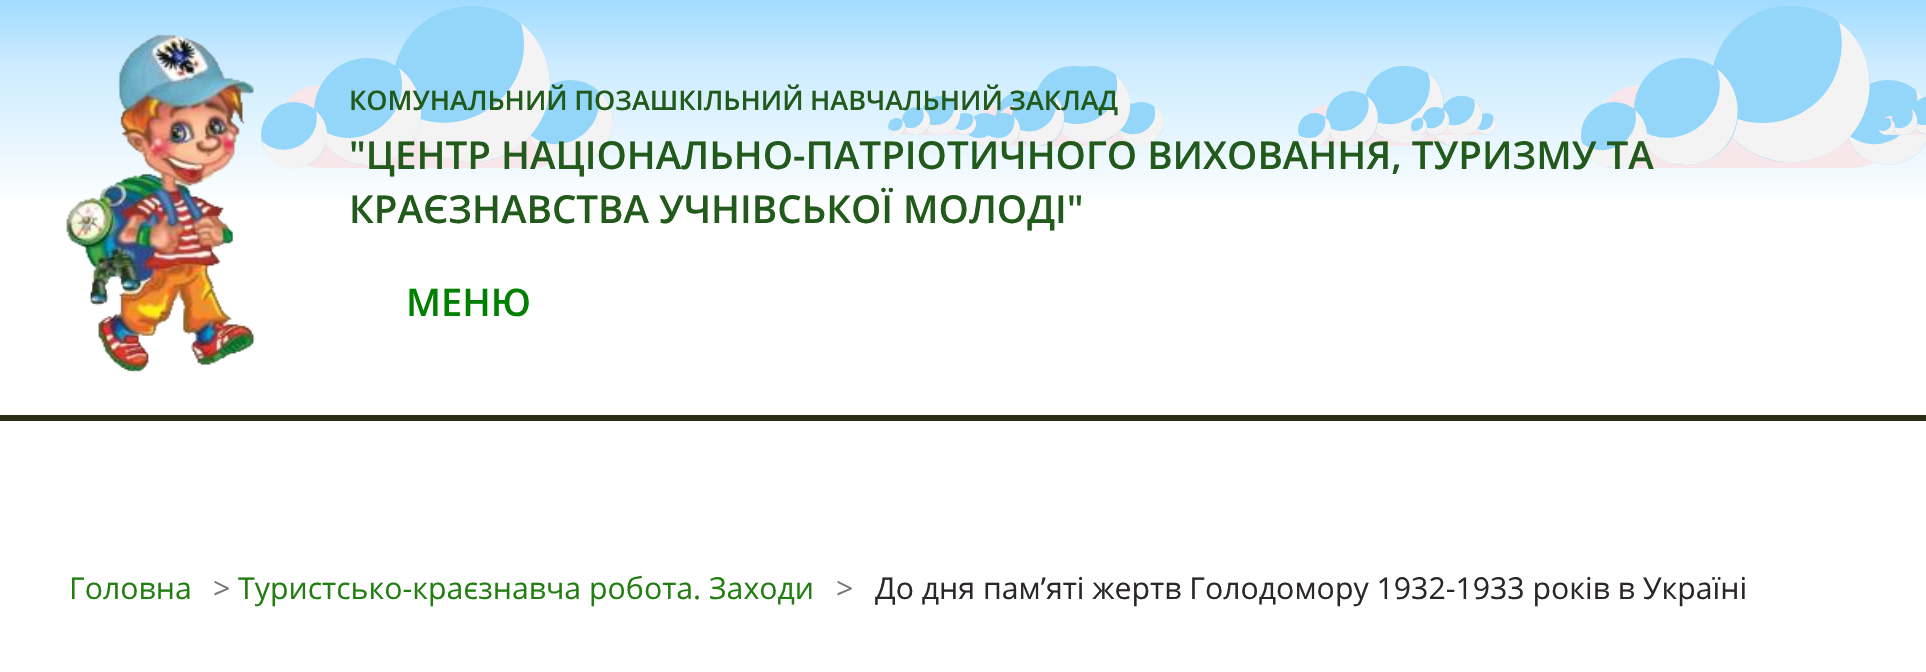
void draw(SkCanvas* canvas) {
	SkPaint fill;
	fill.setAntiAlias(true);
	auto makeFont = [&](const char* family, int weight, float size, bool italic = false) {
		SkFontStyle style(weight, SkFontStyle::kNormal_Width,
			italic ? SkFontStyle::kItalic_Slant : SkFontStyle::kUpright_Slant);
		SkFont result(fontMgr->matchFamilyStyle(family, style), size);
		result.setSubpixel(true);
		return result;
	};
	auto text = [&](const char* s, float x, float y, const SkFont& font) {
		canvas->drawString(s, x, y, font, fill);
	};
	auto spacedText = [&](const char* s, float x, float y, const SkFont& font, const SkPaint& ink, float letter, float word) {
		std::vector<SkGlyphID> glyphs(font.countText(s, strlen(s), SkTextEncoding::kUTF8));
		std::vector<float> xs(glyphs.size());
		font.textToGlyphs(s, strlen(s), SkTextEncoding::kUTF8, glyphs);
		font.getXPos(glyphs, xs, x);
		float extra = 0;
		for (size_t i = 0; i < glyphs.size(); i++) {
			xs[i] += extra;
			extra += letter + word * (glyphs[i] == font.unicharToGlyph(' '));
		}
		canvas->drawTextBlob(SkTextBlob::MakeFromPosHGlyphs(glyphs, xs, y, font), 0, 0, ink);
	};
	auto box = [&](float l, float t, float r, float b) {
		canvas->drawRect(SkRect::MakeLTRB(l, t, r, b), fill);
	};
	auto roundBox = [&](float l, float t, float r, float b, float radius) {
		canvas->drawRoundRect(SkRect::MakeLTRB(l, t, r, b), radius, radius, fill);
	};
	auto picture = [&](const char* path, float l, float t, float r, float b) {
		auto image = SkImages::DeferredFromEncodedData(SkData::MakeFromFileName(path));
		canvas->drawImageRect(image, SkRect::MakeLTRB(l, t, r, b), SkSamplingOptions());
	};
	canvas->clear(0xFFFFFFFF);
	{
		const SkColor colors[] = {0xFFA1DBFF, 0xFFCBEBFF, 0xFFFFFFFF};
		const float stops[] = {0, 0.15f, 0.5f};
		const SkPoint ends[] = {{964, 0}, {964, 415}};
		fill.setShader(SkGradientShader::MakeLinear(ends, colors, stops, 3, SkTileMode::kClamp));
		fill.setAlpha(255);
	}
	box(0, 0, 1926, 201);
	fill.setShader(nullptr);
	fill.setColor(0xFF2D2E18);
	box(0, 415, 1926, 421);
	fill.setColor(0xFFF7E7EB);
	roundBox(278, 85, 575, 168, 41.5f);
	fill.setColor(0xFF93D6F9);
	canvas->drawCircle(570.5f, 122.5f, 42.5f, fill);
	fill.setColor(0xFFF3F3F3);
	canvas->drawPath(SkPathBuilder().moveTo(530, 135).cubicTo(535, 153, 552, 165, 570, 165).cubicTo(594, 165, 613, 146, 613, 122).cubicTo(613, 109, 607, 98, 598, 90).cubicTo(608, 130, 562, 160, 530, 135).close().detach(), fill);
	fill.setColor(0xFF93D6F9);
	roundBox(393, 6, 550, 162, 78);
	fill.setColor(0xFFF3F3F3);
	canvas->drawPath(SkPathBuilder().moveTo(396, 106).cubicTo(406, 139, 436, 162, 471, 162).lineTo(472, 162).cubicTo(515, 162, 550, 127, 550, 84).cubicTo(550, 60, 539, 38, 521, 23).cubicTo(541, 97, 455, 152, 396, 106).close().detach(), fill);
	fill.setColor(0xFF93D6F9);
	canvas->drawCircle(367.5f, 111.5f, 53.5f, fill);
	fill.setColor(0xFFF3F3F3);
	canvas->drawPath(SkPathBuilder().moveTo(316, 126).cubicTo(323, 149, 343, 165, 368, 165).cubicTo(397, 165, 421, 141, 421, 112).cubicTo(421, 94, 412, 78, 399, 68).cubicTo(416, 118, 357, 159, 316, 126).close().detach(), fill);
	fill.setColor(0xFF93D6F9);
	canvas->drawCircle(294, 135, 33, fill);
	fill.setColor(0xFFF3F3F3);
	canvas->drawPath(SkPathBuilder().moveTo(262, 141).cubicTo(263, 150, 269, 159, 277, 164).cubicTo(312, 183, 345, 137, 316, 111).cubicTo(323, 142, 284, 162, 262, 141).close().detach(), fill);
	fill.setColor(0xFFF7E7EB);
	roundBox(976, 105, 1125, 146, 20.5f);
	fill.setColor(0xFF93D6F9);
	roundBox(1103, 102, 1144, 146, 20.5f);
	fill.setColor(0xFFF3F3F3);
	canvas->drawPath(SkPathBuilder().moveTo(1104, 130).cubicTo(1105, 136, 1109, 141, 1114, 143).cubicTo(1118, 146, 1123, 147, 1128, 146).cubicTo(1145, 142, 1150, 117, 1136, 106).cubicTo(1142, 127, 1120, 142, 1104, 130).close().detach(), fill);
	fill.setColor(0xFF93D6F9);
	roundBox(1034, 66, 1114, 143, 38.5f);
	roundBox(996, 91, 1048, 146, 26);
	canvas->drawCircle(984.5f, 129.5f, 16.5f, fill);
	fill.setColor(0xFFF3F3F3);
	canvas->drawPath(SkPathBuilder().moveTo(969, 135).cubicTo(970, 139, 973, 142, 977, 144).cubicTo(994.5f, 153, 1010, 129, 995, 117).cubicTo(997, 126.5f, 992, 138, 979, 138).cubicTo(975, 138, 971.5f, 137, 969, 135).close().detach(), fill);
	fill.setColor(0xFFF7E7EB);
	roundBox(1598, 85, 1895, 168, 41.5f);
	fill.setColor(0xFF93D6F9);
	roundBox(1845, 80, 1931, 165, 42.5f);
	fill.setColor(0xFFF3F3F3);
	canvas->drawPath(SkPathBuilder().moveTo(1847, 134).cubicTo(1852, 152, 1868, 165, 1888, 165).cubicTo(1912, 165, 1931, 146, 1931, 122).cubicTo(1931, 109, 1925, 98, 1916, 90).cubicTo(1926, 130, 1879, 161, 1847, 134).close().detach(), fill);
	fill.setColor(0xFF93D6F9);
	roundBox(1711, 6, 1870, 162, 78);
	fill.setColor(0xFFF3F3F3);
	canvas->drawPath(SkPathBuilder().moveTo(1714, 106).cubicTo(1729, 157, 1792, 178, 1836, 149).cubicTo(1880, 119, 1881, 53, 1839, 22).cubicTo(1842, 34, 1843, 47, 1840, 60).cubicTo(1829, 118, 1759, 142, 1714, 106).close().detach(), fill);
	fill.setColor(0xFF93D6F9);
	roundBox(1634, 58, 1738, 165, 52);
	fill.setColor(0xFFF3F3F3);
	canvas->drawPath(SkPathBuilder().moveTo(1636, 127).cubicTo(1640, 141, 1649, 152, 1661, 159).cubicTo(1672, 165, 1685, 166, 1696, 164).cubicTo(1741, 155, 1752, 95, 1717, 69).cubicTo(1733, 117, 1677, 158, 1636, 127).close().detach(), fill);
	fill.setColor(0xFF93D6F9);
	canvas->drawCircle(1614, 135, 33, fill);
	fill.setColor(0xFFF3F3F3);
	canvas->drawPath(SkPathBuilder().moveTo(1582, 143).cubicTo(1585, 157, 1598, 168, 1614, 168).cubicTo(1632, 168, 1647, 153, 1647, 135).cubicTo(1647, 125, 1642, 116, 1635, 110).cubicTo(1642, 140, 1606, 162, 1582, 143).close().detach(), fill);
	fill.setColor(0xFFF7E7EB);
	roundBox(996, 105, 1144, 146, 20.5f);
	fill.setColor(0xFF93D6F9);
	canvas->drawCircle(1141, 124, 22, fill);
	fill.setColor(0xFFF3F3F3);
	canvas->drawPath(SkPathBuilder().moveTo(1120, 130).cubicTo(1121, 136, 1125, 140, 1130, 143).cubicTo(1155, 157, 1176, 121, 1154, 106).cubicTo(1161, 127, 1136, 142, 1120, 130).close().detach(), fill);
	fill.setColor(0xFF93D6F9);
	roundBox(1051, 66, 1130, 143, 38.5f);
	fill.setColor(0xFFF3F3F3);
	canvas->drawPath(SkPathBuilder().moveTo(1052, 115).cubicTo(1065, 160, 1135, 147, 1130, 100).cubicTo(1129, 90, 1123, 81, 1116, 75).cubicTo(1125, 112, 1082, 139, 1052, 115).close().detach(), fill);
	fill.setColor(0xFF93D6F9);
	roundBox(1012, 91, 1064, 146, 26);
	fill.setColor(0xFFF3F3F3);
	canvas->drawPath(SkPathBuilder().moveTo(1012, 125).cubicTo(1014, 132, 1018, 139, 1025, 142).cubicTo(1030, 146, 1037, 147, 1043, 145).cubicTo(1065, 141, 1071, 111, 1055, 97).cubicTo(1062, 123, 1032, 142, 1012, 125).close().detach(), fill);
	fill.setColor(0xFF93D6F9);
	canvas->drawCircle(1003.5f, 129.5f, 16.5f, fill);
	fill.setColor(0xFFF3F3F3);
	canvas->drawPath(SkPathBuilder().moveTo(987.5f, 134.5f).cubicTo(989, 138.5f, 992, 142, 996, 144).cubicTo(1013.5f, 153.5f, 1029, 129, 1014, 117).cubicTo(1016, 126.5f, 1011, 138, 998, 138).cubicTo(993.5f, 138, 990, 136.5f, 987.5f, 134.5f).close().detach(), fill);
	fill.setColor(0xFFF7E7EB);
	roundBox(1306, 105, 1455, 146, 20.5f);
	fill.setColor(0xFF93D6F9);
	roundBox(1433, 102, 1474, 146, 20.5f);
	fill.setColor(0xFFF3F3F3);
	canvas->drawPath(SkPathBuilder().moveTo(1434, 131).cubicTo(1435, 136, 1439, 141, 1444, 143).cubicTo(1448, 146, 1453, 147, 1458, 146).cubicTo(1475, 142, 1480, 117, 1466, 106).cubicTo(1472, 126, 1450, 141, 1434, 131).close().detach(), fill);
	fill.setColor(0xFF93D6F9);
	roundBox(1364, 66, 1444, 143, 38.5f);
	fill.setColor(0xFFF3F3F3);
	canvas->drawPath(SkPathBuilder().moveTo(1366, 116).cubicTo(1373, 141, 1406, 151, 1427, 136).cubicTo(1449, 121, 1449, 89, 1428, 73).cubicTo(1440, 110, 1395, 139, 1366, 116).close().detach(), fill);
	fill.setColor(0xFF93D6F9);
	roundBox(1326, 91, 1378, 146, 26);
	fill.setColor(0xFFF3F3F3);
	canvas->drawPath(SkPathBuilder().moveTo(1327, 126).cubicTo(1328, 133, 1333, 139, 1339, 143).cubicTo(1345, 146, 1351, 147, 1357, 145).cubicTo(1380, 141, 1385, 109, 1367, 96).cubicTo(1376, 120, 1347, 141, 1327, 126).close().detach(), fill);
	fill.setColor(0xFF93D6F9);
	canvas->drawCircle(1314.5f, 129.5f, 16.5f, fill);
	fill.setColor(0xFFF3F3F3);
	canvas->drawPath(SkPathBuilder().moveTo(1299, 135).cubicTo(1300, 139, 1303, 142, 1307, 144).cubicTo(1324.5f, 153, 1340, 129, 1325, 117).cubicTo(1327, 126.5f, 1322, 138, 1309, 138).cubicTo(1305, 138, 1301.5f, 137, 1299, 135).close().detach(), fill);
	picture("image0.png", 65, 33, 256, 373);
	fill.setColor(0xFFF7E7EB);
	roundBox(894, 116, 968, 135, 9.5f);
	fill.setColor(0xFF93D6F9);
	canvas->drawCircle(965, 124, 11, fill);
	fill.setColor(0xFFF3F3F3);
	canvas->drawPath(SkPathBuilder().moveTo(954.5f, 127).cubicTo(955, 129.5f, 957, 132, 959.5f, 133.5f).cubicTo(971, 139.5f, 981.5f, 125, 973, 116.5f).cubicTo(975.5f, 127.5f, 961.5f, 134.5f, 954.5f, 127).close().detach(), fill);
	fill.setColor(0xFF93D6F9);
	canvas->drawCircle(940.5f, 115.5f, 19.5f, fill);
	fill.setColor(0xFFF3F3F3);
	canvas->drawPath(SkPathBuilder().moveTo(921.5f, 120).cubicTo(922.5f, 125, 926, 130, 931, 132.5f).cubicTo(951, 143.5f, 970, 117.5f, 954.5f, 101.5f).cubicTo(956, 112.5f, 949.5f, 125, 935, 125).cubicTo(929, 125, 924.5f, 123, 921.5f, 120).close().detach(), fill);
	fill.setColor(0xFF93D6F9);
	canvas->drawCircle(916, 121, 14, fill);
	fill.setColor(0xFFF3F3F3);
	canvas->drawPath(SkPathBuilder().moveTo(903, 125.5f).cubicTo(904.5f, 131, 910, 135, 916, 135).cubicTo(923.5f, 135, 930, 128.5f, 930, 121).cubicTo(930, 115.5f, 927, 110.5f, 922, 108.5f).cubicTo(929, 121.5f, 914, 133.5f, 903, 125.5f).close().detach(), fill);
	fill.setColor(0xFF93D6F9);
	canvas->drawCircle(896.5f, 126.5f, 8.5f, fill);
	fill.setColor(0xFFF3F3F3);
	canvas->drawPath(SkPathBuilder().moveTo(888, 127.5f).cubicTo(888.5f, 129.5f, 889.5f, 131.5f, 891, 133).cubicTo(899.5f, 140.5f, 910.5f, 127, 902, 120).cubicTo(905.5f, 129.5f, 893, 135, 888, 127.5f).close().detach(), fill);
	fill.setColor(0xFFF7E7EB);
	roundBox(1414, 116, 1488, 135, 9.5f);
	fill.setColor(0xFF93D6F9);
	roundBox(1477, 113, 1496, 135, 9.5f);
	fill.setColor(0xFFF3F3F3);
	canvas->drawPath(SkPathBuilder().moveTo(1477.5f, 128.5f).cubicTo(1480.5f, 136.5f, 1492, 137, 1495.5f, 129).cubicTo(1496, 127.5f, 1496, 125.5f, 1496, 123.5f).cubicTo(1496, 120.5f, 1495.5f, 118, 1493, 115.5f).cubicTo(1495.5f, 125.5f, 1486, 133.5f, 1477.5f, 128.5f).close().detach(), fill);
	fill.setColor(0xFF93D6F9);
	roundBox(1441, 96, 1482, 135, 19.5f);
	fill.setColor(0xFFF3F3F3);
	canvas->drawPath(SkPathBuilder().moveTo(1442, 120).cubicTo(1447, 144, 1485, 138, 1482, 113).cubicTo(1481, 108, 1478, 103, 1474, 100).cubicTo(1479, 120, 1455, 133, 1442, 120).close().detach(), fill);
	fill.setColor(0xFF93D6F9);
	roundBox(1422, 107, 1449, 135, 13.5f);
	fill.setColor(0xFFF3F3F3);
	canvas->drawPath(SkPathBuilder().moveTo(1422.5f, 125).cubicTo(1423.5f, 128.5f, 1426, 131.5f, 1429, 133.5f).cubicTo(1432, 135, 1435, 135.5f, 1438, 134.5f).cubicTo(1450, 132.5f, 1453, 116.5f, 1443.5f, 109.5f).cubicTo(1449.5f, 123, 1432.5f, 134, 1422.5f, 125).close().detach(), fill);
	fill.setColor(0xFF93D6F9);
	roundBox(1411, 118, 1427, 135, 8);
	fill.setColor(0xFFF3F3F3);
	canvas->drawPath(SkPathBuilder().moveTo(1412, 130.5f).cubicTo(1413, 132.5f, 1414.5f, 134, 1416.5f, 134.5f).cubicTo(1427, 137.5f, 1431, 122.5f, 1422, 118.5f).cubicTo(1426.5f, 126, 1419, 133, 1412, 130.5f).close().detach(), fill);
	fill.setColor(0xFFF7E7EB);
	canvas->drawPath(SkPathBuilder().moveTo(1890.5f, 116).lineTo(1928, 116).lineTo(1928, 135).lineTo(1890.5f, 135).cubicTo(1885.5f, 135, 1881, 130.5f, 1881, 125.5f).cubicTo(1881, 120.5f, 1885.5f, 116, 1890.5f, 116).close().detach(), fill);
	fill.setColor(0xFF93D6F9);
	canvas->drawPath(SkPathBuilder().moveTo(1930.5f, 96).lineTo(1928, 96).lineTo(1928, 135).lineTo(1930.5f, 135).cubicTo(1919.5f, 135, 1911, 126.5f, 1911, 115.5f).cubicTo(1911, 104.5f, 1919.5f, 96, 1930.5f, 96).close().detach(), fill);
	fill.setColor(0xFFF3F3F3);
	canvas->drawPath(SkPathBuilder().moveTo(1912, 121).cubicTo(1913.5f, 126, 1917, 130.5f, 1921.5f, 132.5f).cubicTo(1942, 143.5f, 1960.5f, 115.5f, 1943, 100.5f).cubicTo(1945.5f, 112, 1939, 125, 1924, 125).cubicTo(1919, 125, 1915, 123.5f, 1912, 121).close().detach(), fill);
	fill.setColor(0xFF93D6F9);
	roundBox(1892, 107, 1917, 135, 12.5f);
	fill.setColor(0xFFF3F3F3);
	canvas->drawPath(SkPathBuilder().moveTo(1892.5f, 126).cubicTo(1893.5f, 129.5f, 1895.5f, 132, 1898.5f, 133.5f).cubicTo(1905, 137, 1913, 134, 1916, 127.5f).cubicTo(1918.5f, 121.5f, 1917, 113, 1911.5f, 109).cubicTo(1917, 122, 1903.5f, 133, 1892.5f, 126).close().detach(), fill);
	fill.setColor(0xFF93D6F9);
	canvas->drawCircle(1886.5f, 126.5f, 8.5f, fill);
	fill.setColor(0xFFF3F3F3);
	canvas->drawPath(SkPathBuilder().moveTo(1878.5f, 129.5f).cubicTo(1879.5f, 131.5f, 1881, 133, 1883, 134).cubicTo(1893, 139, 1900, 123.5f, 1890, 119).cubicTo(1894.5f, 126.5f, 1885.5f, 134.5f, 1878.5f, 129.5f).close().detach(), fill);
	auto font1 = makeFont("Open Sans", 600, 27);
	fill.setColor(0xFF215A1B);
	spacedText("КОМУНАЛЬНИЙ ПОЗАШКІЛЬНИЙ НАВЧАЛЬНИЙ ЗАКЛАД", 349, 110, font1, fill, 0, -0.5f);
	auto font2 = makeFont("Open Sans", 600, 38.55f);
	text("\"ЦЕНТР НАЦІОНАЛЬНО-ПАТРІОТИЧНОГО ВИХОВАННЯ, ТУРИЗМУ ТА", 349, 169, font2);
	text("КРАЄЗНАВСТВА УЧНІВСЬКОЇ МОЛОДІ\"", 349, 223, font2);
	auto font3 = makeFont("Open Sans", 600, 38);
	fill.setColor(0xFF008000);
	text("МЕНЮ", 406, 316, font3);
	auto font4 = makeFont("Open Sans", 400, 30.25f);
	fill.setColor(0xFF227E11);
	text("Головна", 69, 599, font4);
	fill.setColor(0xFF777777);
	text(">", 213, 599, font4);
	fill.setColor(0xFF227E11);
	text("Туристсько-краєзнавча робота. Заходи", 238, 599, font4);
	fill.setColor(0xFF777777);
	text(">", 836, 599, font4);
	fill.setColor(0xFF2C2727);
	text("До дня пам’яті жертв Голодомору 1932-1933 років в Україні", 875, 599, font4);
}
